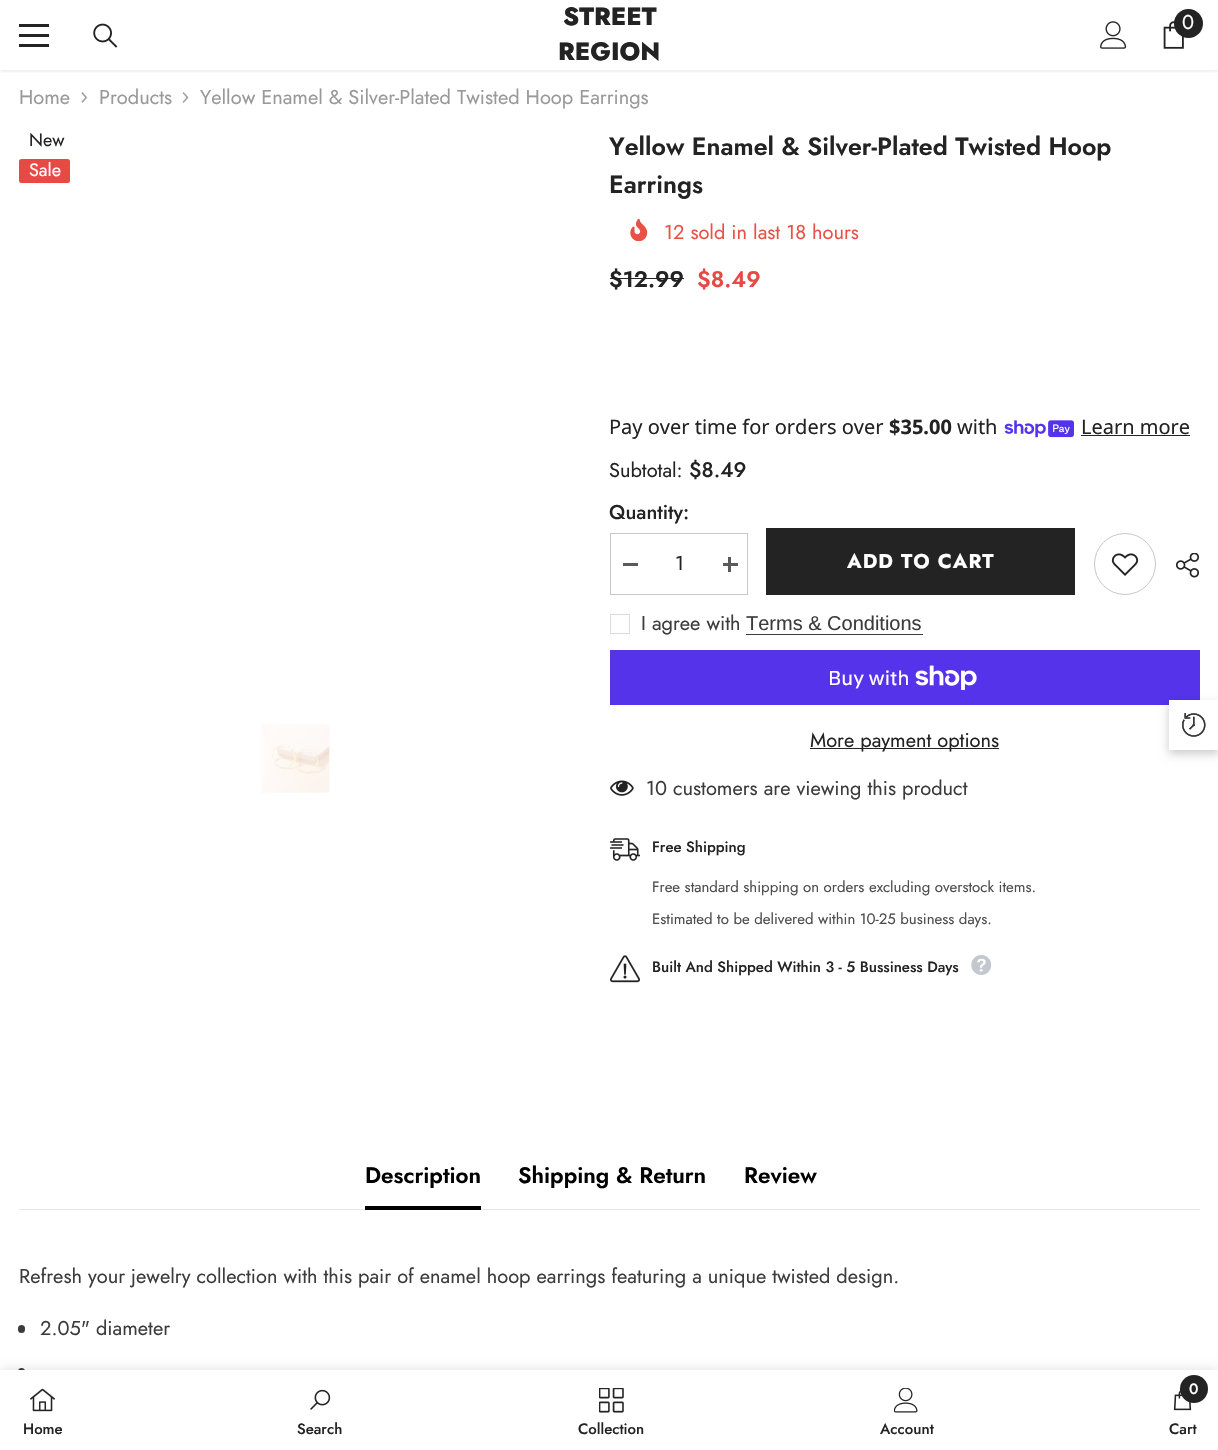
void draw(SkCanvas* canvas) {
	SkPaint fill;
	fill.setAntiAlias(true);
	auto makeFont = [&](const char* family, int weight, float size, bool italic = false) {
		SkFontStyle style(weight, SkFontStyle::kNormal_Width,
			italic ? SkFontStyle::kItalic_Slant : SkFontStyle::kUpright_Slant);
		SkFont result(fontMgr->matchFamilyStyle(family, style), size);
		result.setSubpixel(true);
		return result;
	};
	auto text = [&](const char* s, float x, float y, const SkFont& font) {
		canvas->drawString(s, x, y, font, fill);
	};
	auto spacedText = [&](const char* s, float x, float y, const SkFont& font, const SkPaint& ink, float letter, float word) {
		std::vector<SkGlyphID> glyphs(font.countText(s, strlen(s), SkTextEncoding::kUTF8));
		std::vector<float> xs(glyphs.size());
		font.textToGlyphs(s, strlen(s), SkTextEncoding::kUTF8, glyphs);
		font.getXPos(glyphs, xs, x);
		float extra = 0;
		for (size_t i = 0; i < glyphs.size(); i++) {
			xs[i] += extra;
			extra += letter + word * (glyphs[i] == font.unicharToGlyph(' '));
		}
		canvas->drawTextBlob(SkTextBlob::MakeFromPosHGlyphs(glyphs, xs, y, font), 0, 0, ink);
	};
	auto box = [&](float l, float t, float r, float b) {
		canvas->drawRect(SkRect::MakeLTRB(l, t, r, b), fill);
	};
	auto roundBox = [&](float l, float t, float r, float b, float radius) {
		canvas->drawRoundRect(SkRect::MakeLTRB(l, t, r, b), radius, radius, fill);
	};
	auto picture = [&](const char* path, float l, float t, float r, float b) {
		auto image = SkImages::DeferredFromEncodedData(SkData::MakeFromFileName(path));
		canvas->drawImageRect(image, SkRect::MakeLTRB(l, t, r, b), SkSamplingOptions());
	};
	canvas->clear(0xFFFFFFFF);
	canvas->save();
	canvas->clipRect(SkRect::MakeLTRB(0, 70, 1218, 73));
	fill.setColor(0x1A000000);
	fill.setMaskFilter(SkMaskFilter::MakeBlur(kNormal_SkBlurStyle, 2));
	canvas->drawRect(SkRect::MakeLTRB(0, 1, 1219, 71), fill);
	fill.setMaskFilter(nullptr);
	canvas->restore();
	fill.setColor(0xFF232323);
	box(19, 34, 49, 37);
	box(19, 24, 49, 27);
	box(19, 44, 49, 47);
	picture("image0.png", 93, 23, 118, 48);
	picture("image1.png", 1100, 21, 1127, 49);
	picture("image2.png", 1163, 21, 1184, 49);
	canvas->drawCircle(1188.5f, 23.5f, 14.5f, fill);
	picture("image3.png", 81, 92, 88, 103);
	picture("image4.png", 182, 92, 189, 103);
	fill.setColor(0xFFE74A45);
	roundBox(19, 159, 70, 183, 2.5f);
	picture("image5.png", 261, 724, 330, 793);
	picture("image6.png", 630, 219, 648, 241);
	fill.setColor(0xFF232323);
	box(610, 278, 684, 279);
	picture("image7.png", 1004, 420, 1074, 438);
	box(1081, 435, 1190, 436);
	fill.setStyle(SkPaint::kStroke_Style);
	fill.setStrokeWidth(1);
	fill.setColor(0xFFC7C7C7);
	canvas->drawRect(SkRect::MakeLTRB(610.5f, 533.5f, 747.5f, 594.5f), fill);
	fill.setStyle(SkPaint::kFill_Style);
	fill.setColor(0xFF5A5A5A);
	box(623, 563, 638, 566);
	box(723, 563, 738, 566);
	box(728, 557, 731, 572);
	fill.setColor(0xFF232323);
	box(766, 528, 1075, 595);
	fill.setStyle(SkPaint::kStroke_Style);
	fill.setColor(0xFFC7C7C7);
	canvas->drawCircle(1125, 564, 30.5f, fill);
	picture("image8.png", 1111, 553, 1139, 576);
	picture("image9.png", 1175, 553, 1200, 578);
	fill.setColor(0xFFDBDBDB);
	canvas->drawRect(SkRect::MakeLTRB(610.5f, 614.5f, 629.5f, 633.5f), fill);
	fill.setStyle(SkPaint::kFill_Style);
	fill.setColor(0xFF3C3C3C);
	box(746, 634, 923, 635);
	fill.setColor(0xFF5433EB);
	box(610, 650, 1200, 705);
	picture("image10.png", 915, 665, 977, 690);
	fill.setColor(0xFF232323);
	box(810, 748, 999, 749);
	picture("image11.png", 610, 780, 634, 796);
	picture("image12.png", 610, 838, 640, 861);
	picture("image13.png", 610, 955, 640, 983);
	picture("image14.png", 971, 955, 991, 975);
	fill.setColor(0xFFE6E6E6);
	box(19, 1209, 1200, 1210);
	fill.setColor(0xFF000000);
	box(365, 1206, 481, 1210);
	fill.setColor(0xFF3C3C3C);
	roundBox(18, 1325, 25, 1333, 3.5f);
	canvas->drawCircle(21.5f, 1371.5f, 3.5f, fill);
	fill.setColor(0x1F000000);
	fill.setMaskFilter(SkMaskFilter::MakeBlur(kNormal_SkBlurStyle, 5.5f));
	canvas->drawRect(SkRect::MakeLTRB(0, 1370, 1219, 1450), fill);
	fill.setMaskFilter(nullptr);
	fill.setColor(0xFFFFFFFF);
	box(0, 1370, 1218, 1450);
	picture("image15.png", 30, 1388, 55, 1412);
	picture("image16.png", 310, 1389, 331, 1410);
	picture("image17.png", 599, 1388, 624, 1413);
	picture("image18.png", 894, 1388, 918, 1413);
	picture("image19.png", 1173, 1390, 1192, 1411);
	fill.setColor(0xFF232323);
	canvas->drawCircle(1194, 1389, 14, fill);
	fill.setColor(0x33000000);
	fill.setMaskFilter(SkMaskFilter::MakeBlur(kNormal_SkBlurStyle, 4.5f));
	canvas->drawRect(SkRect::MakeLTRB(1169, 704, 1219, 754), fill);
	fill.setMaskFilter(nullptr);
	fill.setColor(0xFFFFFFFF);
	box(1169, 700, 1218, 750);
	picture("image20.png", 1182, 713, 1206, 737);
	auto font1 = makeFont("Jost", 800, 25);
	fill.setColor(0xFF232323);
	text("STREET", 563, 25, font1);
	text("REGION", 558, 60, font1);
	auto font2 = makeFont("Jost", 400, 20);
	fill.setColor(0xFFFFFFFF);
	text("0", 1182, 29, font2);
	fill.setColor(0xFF999999);
	text("Home", 19, 104, font2);
	text("Products", 99, 104, font2);
	text("Yellow Enamel & Silver-Plated Twisted Hoop Earrings", 200, 104, font2);
	auto font3 = makeFont("Jost", 400, 18);
	fill.setColor(0xFF232323);
	text("New", 29, 146, font3);
	fill.setColor(0xFFFFFFFF);
	text("Sale", 29, 176, font3);
	auto font4 = makeFont("Jost", 600, 25);
	fill.setColor(0xFF232323);
	text("Yellow Enamel & Silver-Plated Twisted Hoop", 609, 155, font4);
	text("Earrings", 609, 193, font4);
	fill.setColor(0xFFE95144);
	text("12 sold in last 18 hours", 664, 239, font2);
	auto font5 = makeFont("Jost", 600, 22.5f);
	fill.setColor(0xFF232323);
	text("$12.99", 609, 287, font5);
	fill.setColor(0xFFE74A45);
	text("$8.49", 697, 287, font5);
	auto font6 = makeFont("Noto Sans", 400, 20);
	fill.setColor(0xFF232323);
	text("Pay over time for orders over", 609, 434, font6);
	auto font7 = makeFont("Noto Sans", 700, 20);
	text("$35.00", 889, 434, font7);
	text("with", 957, 434, font6);
	text("Learn more", 1081, 434, font6);
	text("Subtotal:", 609, 477, font2);
	auto font8 = makeFont("Jost", 500, 21);
	text("$8.49", 689, 477, font8);
	auto font9 = makeFont("Jost", 500, 20);
	text("Quantity:", 609, 519, font9);
	text("1", 675, 570, font2);
	auto font10 = makeFont("Jost", 700, 20);
	fill.setColor(0xFFFFFFFF);
	spacedText("ADD TO CART", 847, 568, font10, fill, 1, 0);
	fill.setColor(0xFF3C3C3C);
	text("I agree with", 641, 630, font2);
	auto font11 = makeFont("Liberation Sans", 400, 20);
	text("Terms & Conditions", 746, 630, font11);
	auto font12 = makeFont("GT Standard", 400, 20);
	fill.setColor(0xFFFFFFFF);
	text("Buy with", 828, 685, font12);
	fill.setColor(0xFF232323);
	text("More payment options", 810, 747, font2);
	fill.setColor(0xFF3C3C3C);
	text("10 customers are viewing this product", 646, 795, font2);
	auto font13 = makeFont("Jost", 500, 15);
	fill.setColor(0xFF232323);
	text("Free Shipping", 652, 852, font13);
	auto font14 = makeFont("Jost", 400, 15);
	fill.setColor(0xFF4D4D4D);
	text("Free standard shipping on orders excluding overstock items.", 652, 892, font14);
	text("Estimated to be delivered within 10-25 business days.", 652, 924, font14);
	fill.setColor(0xFF232323);
	text("Built And Shipped Within 3 - 5 Bussiness Days", 652, 972, font13);
	fill.setColor(0xFF000000);
	text("Description", 365, 1183, font5);
	text("Shipping & Return", 518, 1183, font5);
	text("Review", 744, 1183, font5);
	fill.setColor(0xFF3C3C3C);
	text("Refresh your jewelry collection with this pair of enamel hoop earrings featuring a unique twisted design.", 19, 1283, font2);
	text("2.05\" diameter", 40, 1335, font2);
	fill.setColor(0xFF232323);
	text("Home", 23, 1434, font13);
	text("Search", 297, 1434, font13);
	text("Collection", 578, 1434, font13);
	text("Account", 880, 1434, font13);
	fill.setColor(0xFFFFFFFF);
	text("0", 1189, 1394, font13);
	fill.setColor(0xFF232323);
	text("Cart", 1169, 1434, font13);
}
